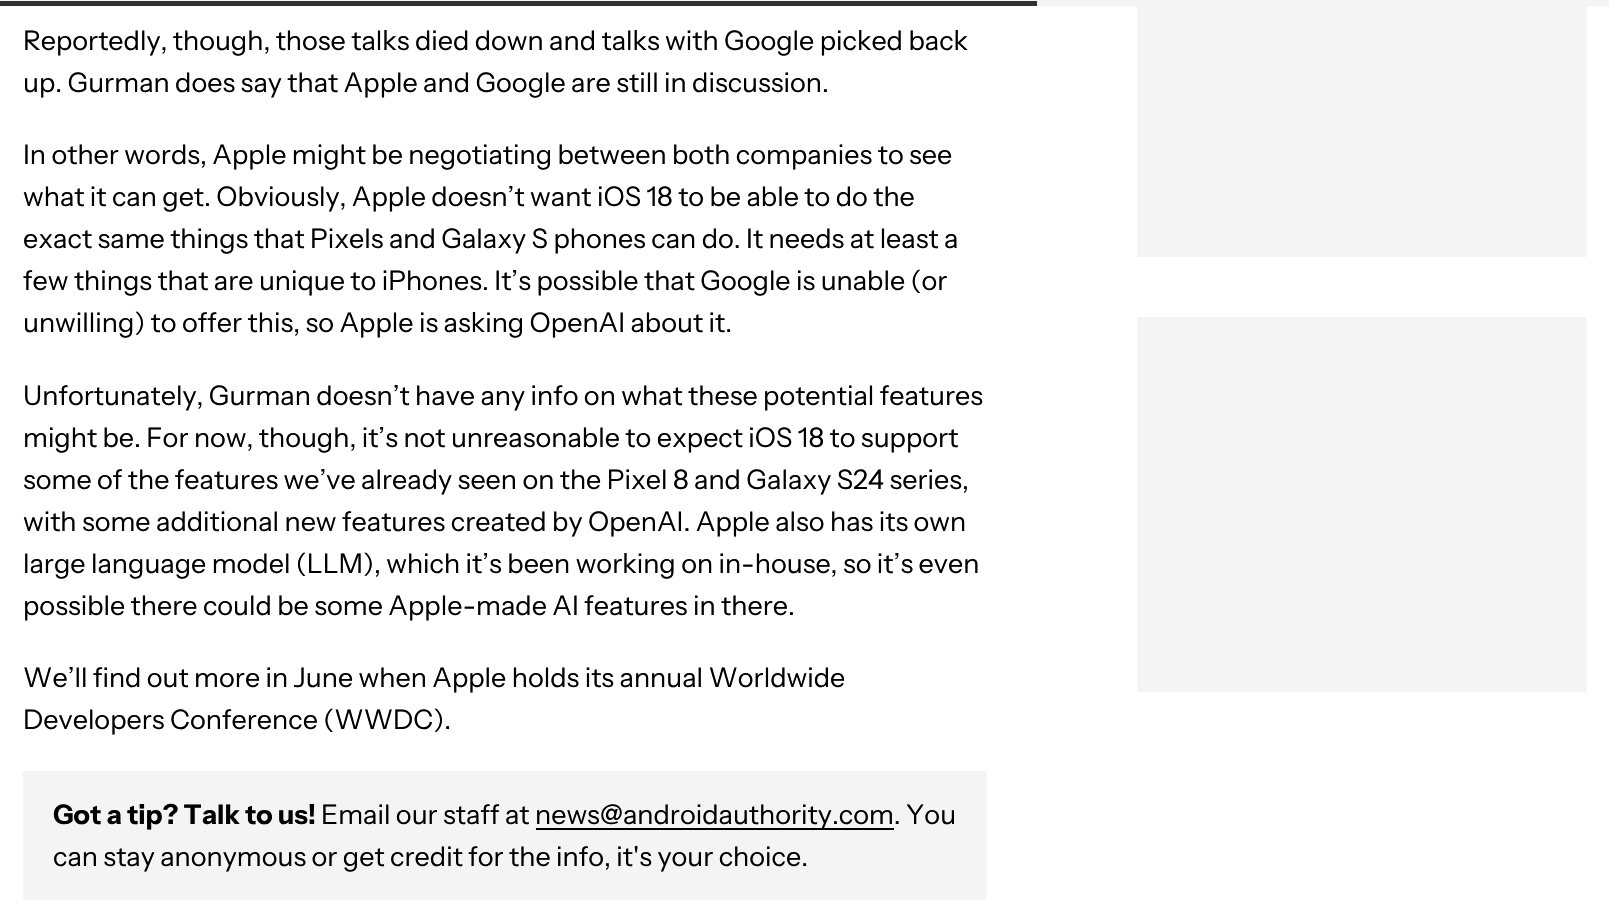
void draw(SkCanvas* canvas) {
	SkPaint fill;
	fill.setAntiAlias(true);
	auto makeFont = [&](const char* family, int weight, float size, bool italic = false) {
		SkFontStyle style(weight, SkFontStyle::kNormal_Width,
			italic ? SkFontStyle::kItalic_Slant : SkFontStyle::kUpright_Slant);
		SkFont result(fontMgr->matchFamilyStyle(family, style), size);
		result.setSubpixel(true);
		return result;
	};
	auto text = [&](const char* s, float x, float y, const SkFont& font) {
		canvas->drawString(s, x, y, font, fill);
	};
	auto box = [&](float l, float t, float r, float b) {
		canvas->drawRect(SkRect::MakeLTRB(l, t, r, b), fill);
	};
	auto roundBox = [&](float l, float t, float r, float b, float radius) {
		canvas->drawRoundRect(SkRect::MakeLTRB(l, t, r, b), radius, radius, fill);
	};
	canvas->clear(0xFFFFFFFF);
	fill.setColor(0xFFF4F4F4);
	box(0, 0, 1609, 1);
	box(1037, 1, 1609, 6);
	fill.setColor(0xFF313131);
	box(0, 1, 1037, 6);
	fill.setColor(0xFFF4F4F4);
	roundBox(23, 771, 987, 900, 3);
	fill.setColor(0xFF000000);
	box(536, 828, 894, 830);
	fill.setColor(0xFFF4F4F4);
	box(1137, 6, 1587, 257);
	box(1137, 317, 1587, 692);
	auto font1 = makeFont("Instrument Sans", 400, 27);
	fill.setColor(0xFF000000);
	text("Reportedly, though, those talks died down and talks with Google picked back", 23, 50, font1);
	text("up. Gurman does say that Apple and Google are still in discussion.", 23, 92, font1);
	text("In other words, Apple might be negotiating between both companies to see", 23, 164, font1);
	text("what it can get. Obviously, Apple doesn’t want iOS 18 to be able to do the", 23, 206, font1);
	text("exact same things that Pixels and Galaxy S phones can do. It needs at least a", 23, 248, font1);
	text("few things that are unique to iPhones. It’s possible that Google is unable (or", 23, 290, font1);
	text("unwilling) to offer this, so Apple is asking OpenAI about it.", 23, 332, font1);
	text("Unfortunately, Gurman doesn’t have any info on what these potential features", 23, 405, font1);
	text("might be. For now, though, it’s not unreasonable to expect iOS 18 to support", 23, 447, font1);
	text("some of the features we’ve already seen on the Pixel 8 and Galaxy S24 series,", 23, 489, font1);
	text("with some additional new features created by OpenAI. Apple also has its own", 23, 531, font1);
	text("large language model (LLM), which it’s been working on in-house, so it’s even", 23, 573, font1);
	text("possible there could be some Apple-made AI features in there.", 23, 615, font1);
	text("We’ll find out more in June when Apple holds its annual Worldwide", 23, 687, font1);
	text("Developers Conference (WWDC).", 23, 729, font1);
	auto font2 = makeFont("Instrument Sans", 700, 27);
	text("Got a tip? Talk to us!", 53, 824, font2);
	text("Email our staff at", 321, 824, font1);
	text("news@androidauthority.com. You", 535, 824, font1);
	text("can stay anonymous or get credit for the info, it's your choice.", 53, 866, font1);
}
